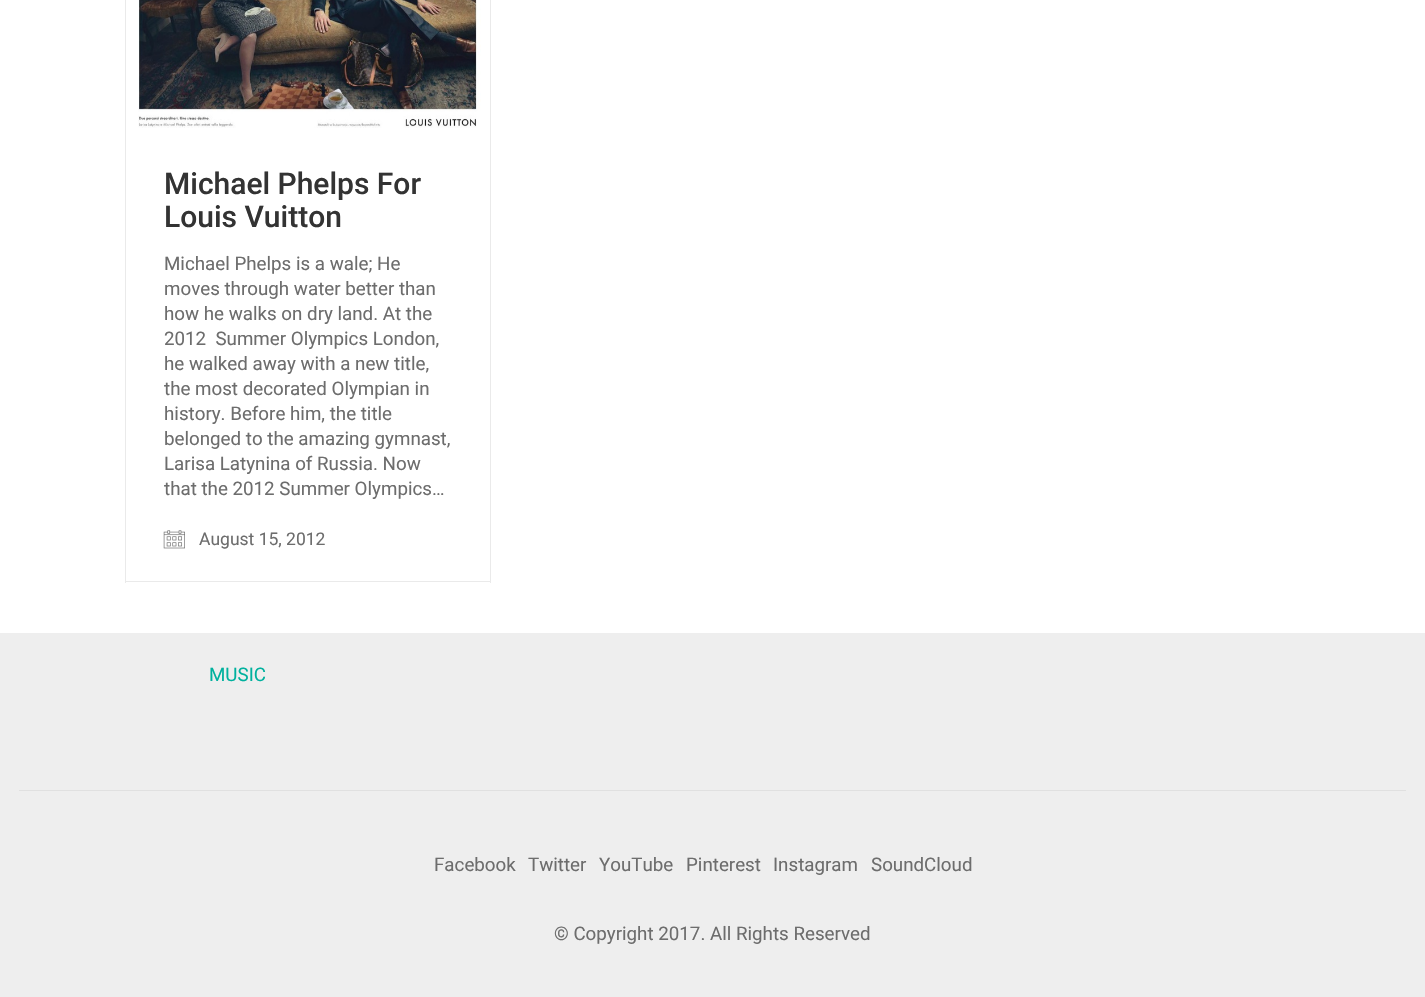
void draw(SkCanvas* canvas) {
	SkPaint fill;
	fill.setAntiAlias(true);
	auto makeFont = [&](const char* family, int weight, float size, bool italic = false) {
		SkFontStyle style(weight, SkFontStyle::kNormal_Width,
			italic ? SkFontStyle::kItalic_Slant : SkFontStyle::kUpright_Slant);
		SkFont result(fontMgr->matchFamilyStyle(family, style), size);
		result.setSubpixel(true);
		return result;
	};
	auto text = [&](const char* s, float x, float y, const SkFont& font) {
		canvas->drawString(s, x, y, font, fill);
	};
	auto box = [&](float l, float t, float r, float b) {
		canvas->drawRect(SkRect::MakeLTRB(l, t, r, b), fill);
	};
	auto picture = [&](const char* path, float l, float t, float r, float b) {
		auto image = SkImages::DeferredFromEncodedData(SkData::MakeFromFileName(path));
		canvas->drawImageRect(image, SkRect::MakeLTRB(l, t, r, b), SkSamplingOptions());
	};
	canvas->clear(0xFFEEEEEE);
	fill.setColor(0xFFFFFFFF);
	box(0, 0, 1425, 633);
	picture("image0.png", 138, 0, 481, 128);
	fill.setColor(0xFFEAEAEA);
	box(490, 0, 491, 583);
	box(125, 581, 491, 582);
	box(125, 0, 126, 583);
	picture("image1.png", 163, 530, 185, 549);
	fill.setColor(0xFFE0E0E0);
	box(19, 790, 1406, 791);
	auto font1 = makeFont("Roboto", 500, 30);
	fill.setColor(0xFF333333);
	text("Michael Phelps For", 164, 194, font1);
	text("Louis Vuitton", 164, 227, font1);
	auto font2 = makeFont("Roboto", 400, 18.75f);
	fill.setColor(0xFF6D6D6D);
	text("Michael Phelps is a wale; He", 164, 270, font2);
	text("moves through water better than", 164, 295, font2);
	text("how he walks on dry land. At the", 164, 320, font2);
	text("2012  Summer Olympics London,", 164, 345, font2);
	text("he walked away with a new title,", 164, 370, font2);
	text("the most decorated Olympian in", 164, 395, font2);
	text("history. Before him, the title", 164, 420, font2);
	text("belonged to the amazing gymnast,", 164, 445, font2);
	text("Larisa Latynina of Russia. Now", 164, 470, font2);
	text("that the 2012 Summer Olympics…", 164, 495, font2);
	auto font3 = makeFont("Roboto", 400, 17.5f);
	text("August 15, 2012", 199, 545, font3);
	fill.setColor(0xFF00B19E);
	text("MUSIC", 209, 681, font2);
	fill.setColor(0xFF6D6D6D);
	text("Facebook", 434, 871, font2);
	text("Twitter", 528, 871, font2);
	text("YouTube", 599, 871, font2);
	text("Pinterest", 686, 871, font2);
	text("Instagram", 773, 871, font2);
	text("SoundCloud", 871, 871, font2);
	text("© Copyright 2017. All Rights Reserved", 554, 940, font2);
}
